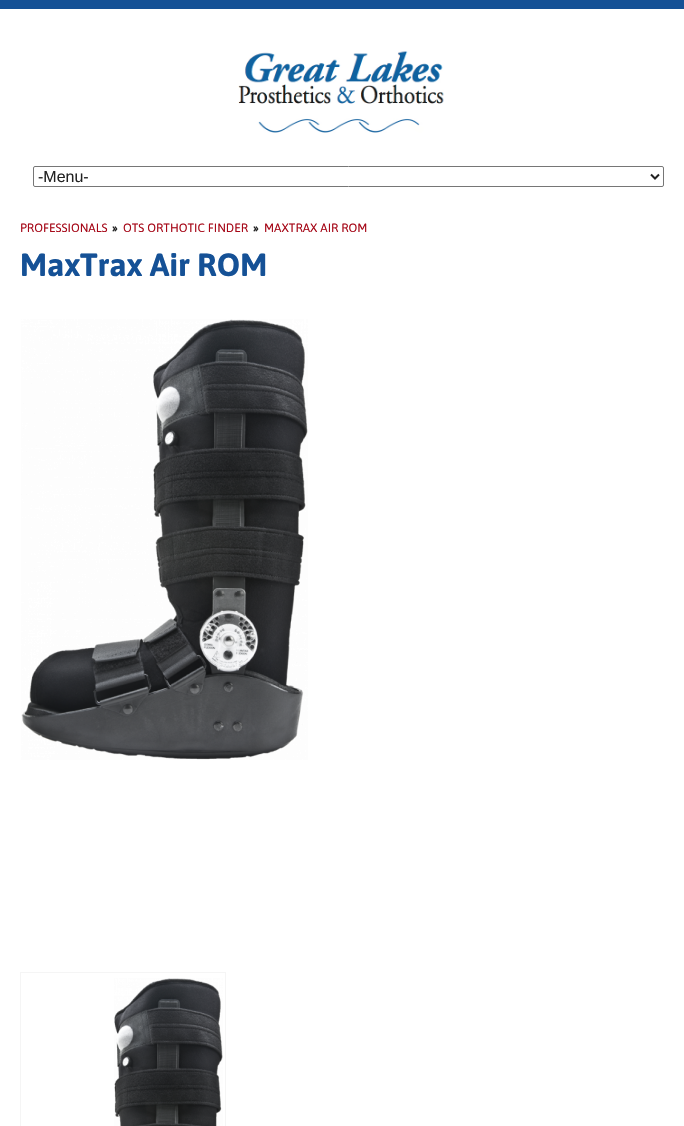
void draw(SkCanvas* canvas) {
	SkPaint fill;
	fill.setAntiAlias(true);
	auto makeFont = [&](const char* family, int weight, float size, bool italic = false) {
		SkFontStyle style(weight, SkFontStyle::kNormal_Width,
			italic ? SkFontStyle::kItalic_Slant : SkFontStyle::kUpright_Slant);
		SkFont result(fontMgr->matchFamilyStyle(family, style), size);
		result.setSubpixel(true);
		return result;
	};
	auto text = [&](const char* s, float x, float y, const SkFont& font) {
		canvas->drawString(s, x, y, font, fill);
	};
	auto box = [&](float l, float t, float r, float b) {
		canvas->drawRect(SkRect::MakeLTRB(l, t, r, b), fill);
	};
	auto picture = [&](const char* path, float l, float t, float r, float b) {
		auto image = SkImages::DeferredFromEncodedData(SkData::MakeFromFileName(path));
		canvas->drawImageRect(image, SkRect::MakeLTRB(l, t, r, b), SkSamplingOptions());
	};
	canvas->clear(0xFFFFFFFF);
	fill.setColor(0xFF155196);
	box(0, 0, 684, 9);
	picture("image0.png", 238, 51, 444, 133);
	fill.setStyle(SkPaint::kStroke_Style);
	fill.setStrokeWidth(1);
	fill.setColor(0xFF767676);
	canvas->drawRoundRect(SkRect::MakeLTRB(33.5f, 166.5f, 663.5f, 186.5f), 1.5f, 1.5f, fill);
	fill.setStrokeWidth(2);
	fill.setColor(0xFF222222);
	canvas->drawPath(SkPathBuilder().moveTo(651, 174.5f).lineTo(655, 178.5f).lineTo(659, 174.5f).detach(), fill);
	picture("image1.png", 21, 319, 308, 760);
	fill.setStrokeWidth(1);
	fill.setColor(0xFFF5F5F5);
	canvas->drawRect(SkRect::MakeLTRB(20.5f, 972.5f, 225.5f, 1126.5f), fill);
	picture("image2.png", 114, 978, 223, 1126);
	auto font1 = makeFont("Liberation Sans", 400, 16);
	fill.setStyle(SkPaint::kFill_Style);
	fill.setColor(0xFF222222);
	text("-Menu-", 38, 182, font1);
	auto font2 = makeFont("Asap", 400, 12);
	fill.setColor(0xFFA60818);
	text("PROFESSIONALS", 20, 232, font2);
	auto font3 = makeFont("Asap", 700, 12);
	fill.setColor(0xFF222222);
	text("»", 112, 232, font3);
	fill.setColor(0xFFA60818);
	text("OTS ORTHOTIC FINDER", 123, 232, font2);
	fill.setColor(0xFF222222);
	text("»", 253, 232, font3);
	fill.setColor(0xFFA60818);
	text("MAXTRAX AIR ROM", 264, 232, font2);
	auto font4 = makeFont("Asap", 700, 32);
	fill.setColor(0xFF155196);
	text("MaxTrax Air ROM", 20, 276, font4);
}
